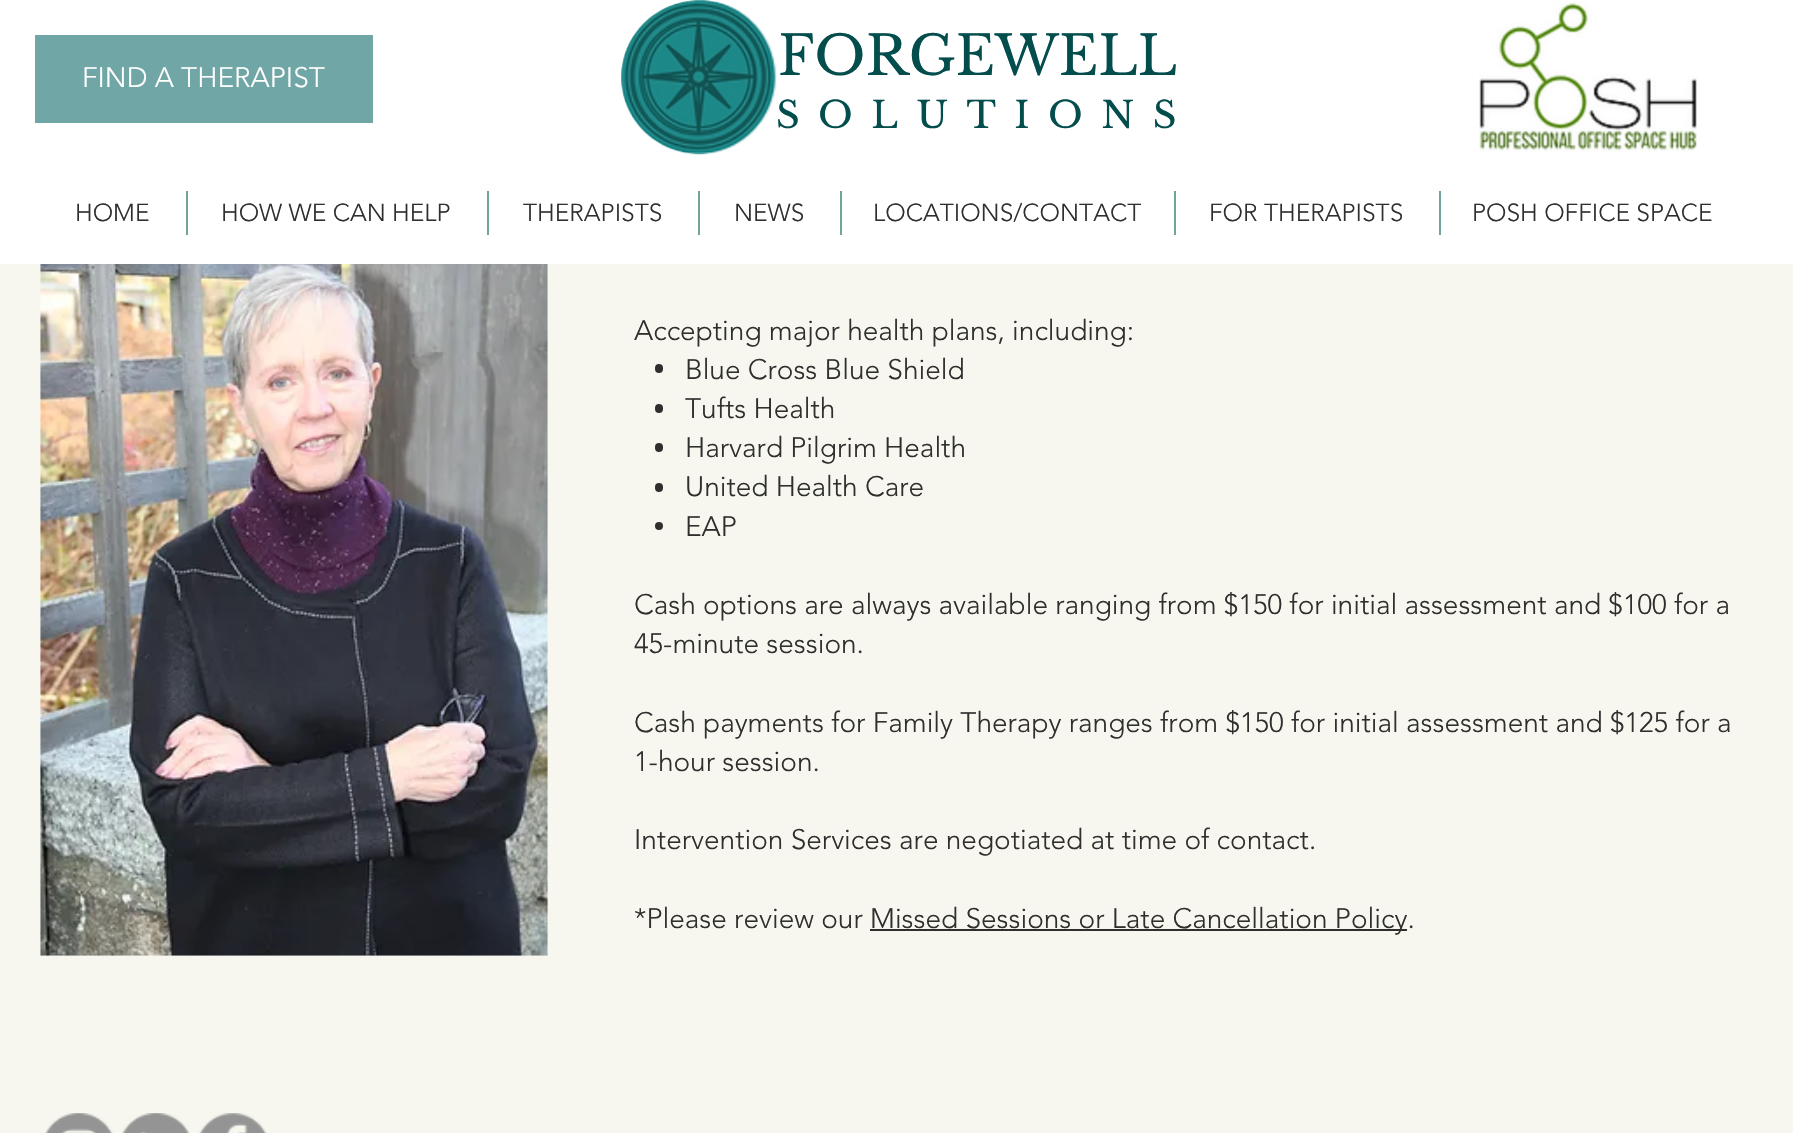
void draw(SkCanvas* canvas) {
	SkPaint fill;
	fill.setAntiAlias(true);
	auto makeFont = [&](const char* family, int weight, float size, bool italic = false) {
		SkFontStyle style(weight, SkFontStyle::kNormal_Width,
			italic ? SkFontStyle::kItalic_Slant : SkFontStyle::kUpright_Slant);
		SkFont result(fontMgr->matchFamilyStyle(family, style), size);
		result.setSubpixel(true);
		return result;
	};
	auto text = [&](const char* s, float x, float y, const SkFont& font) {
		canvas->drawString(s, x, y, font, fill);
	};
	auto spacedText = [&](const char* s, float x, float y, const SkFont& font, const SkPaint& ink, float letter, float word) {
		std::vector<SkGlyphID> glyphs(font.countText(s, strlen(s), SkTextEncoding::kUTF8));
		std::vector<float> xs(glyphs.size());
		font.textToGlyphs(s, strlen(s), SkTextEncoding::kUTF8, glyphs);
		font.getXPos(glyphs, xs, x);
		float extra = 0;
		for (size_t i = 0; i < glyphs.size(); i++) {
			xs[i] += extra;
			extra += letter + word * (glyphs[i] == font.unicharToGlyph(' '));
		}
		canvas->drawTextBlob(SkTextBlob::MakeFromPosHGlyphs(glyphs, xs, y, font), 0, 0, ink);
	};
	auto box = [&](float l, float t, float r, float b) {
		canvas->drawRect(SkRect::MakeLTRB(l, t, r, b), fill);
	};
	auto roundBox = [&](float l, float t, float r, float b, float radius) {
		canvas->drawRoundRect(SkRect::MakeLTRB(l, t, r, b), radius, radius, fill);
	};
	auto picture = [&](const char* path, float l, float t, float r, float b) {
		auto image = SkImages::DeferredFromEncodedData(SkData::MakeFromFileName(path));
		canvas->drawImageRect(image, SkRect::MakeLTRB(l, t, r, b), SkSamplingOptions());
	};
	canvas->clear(0xFFF7F7F0);
	fill.setColor(0xFFFFFFFF);
	box(0, 0, 1793, 264);
	picture("image0.png", 621, 0, 777, 155);
	picture("image1.png", 1479, 1, 1697, 152);
	fill.setColor(0xFF71A39A);
	box(186, 191, 188, 235);
	box(487, 191, 489, 235);
	box(698, 191, 700, 235);
	box(840, 191, 842, 235);
	box(1174, 191, 1176, 235);
	box(1439, 191, 1441, 235);
	fill.setColor(0xFF71A6A6);
	box(35, 35, 373, 123);
	picture("image2.png", 40, 264, 548, 956);
	fill.setColor(0xFF2F2F2E);
	roundBox(655, 364, 663, 373, 4);
	roundBox(655, 404, 663, 413, 4);
	roundBox(655, 443, 663, 452, 4);
	roundBox(655, 483, 663, 492, 4);
	canvas->drawCircle(659, 526, 4, fill);
	box(870, 929, 1407, 931);
	picture("image3.png", 45, 1113, 113, 1133);
	picture("image4.png", 122, 1113, 190, 1133);
	picture("image5.png", 199, 1113, 267, 1133);
	auto font1 = makeFont("Libre Baskerville", 400, 54.25f);
	fill.setColor(0xFF034D4D);
	text("FORGEWELL", 778, 75, font1);
	auto font2 = makeFont("Libre Baskerville", 400, 36.75f);
	spacedText("SOLUTIONS", 776, 128, font2, fill, 18.4f, 0);
	auto font3 = makeFont("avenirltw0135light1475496", 300, 24.5f);
	fill.setColor(0xFF2F2F2E);
	text("HOME", 75, 221, font3);
	text("HOW WE CAN HELP", 221, 221, font3);
	text("THERAPISTS", 523, 221, font3);
	text("NEWS", 734, 221, font3);
	text("LOCATIONS/CONTACT", 873, 221, font3);
	text("FOR THERAPISTS", 1209, 221, font3);
	text("POSH OFFICE SPACE", 1472, 221, font3);
	auto font4 = makeFont("avenirltw0135light1475496", 300, 28);
	fill.setColor(0xFFFFFFFF);
	text("FIND A THERAPIST", 82, 87, font4);
	fill.setColor(0xFF2F2F2E);
	text("Accepting major health plans, including:", 634, 340, font4);
	text("Blue Cross Blue Shield", 685, 379, font4);
	text("Tufts Health", 685, 418, font4);
	text("Harvard Pilgrim Health", 685, 457, font4);
	text("United Health Care", 685, 496, font4);
	text("EAP", 685, 536, font4);
	text("Cash options are always available ranging from $150 for initial assessment and $100 for a", 634, 614, font4);
	text("45-minute session.", 634, 653, font4);
	text("Cash payments for Family Therapy ranges from $150 for initial assessment and $125 for a", 634, 732, font4);
	text("1-hour session.", 634, 771, font4);
	text("Intervention Services are negotiated at time of contact.", 634, 849, font4);
	text("*Please review our", 634, 928, font4);
	text("Missed Sessions or Late Cancellation Policy.", 870, 928, font4);
}
